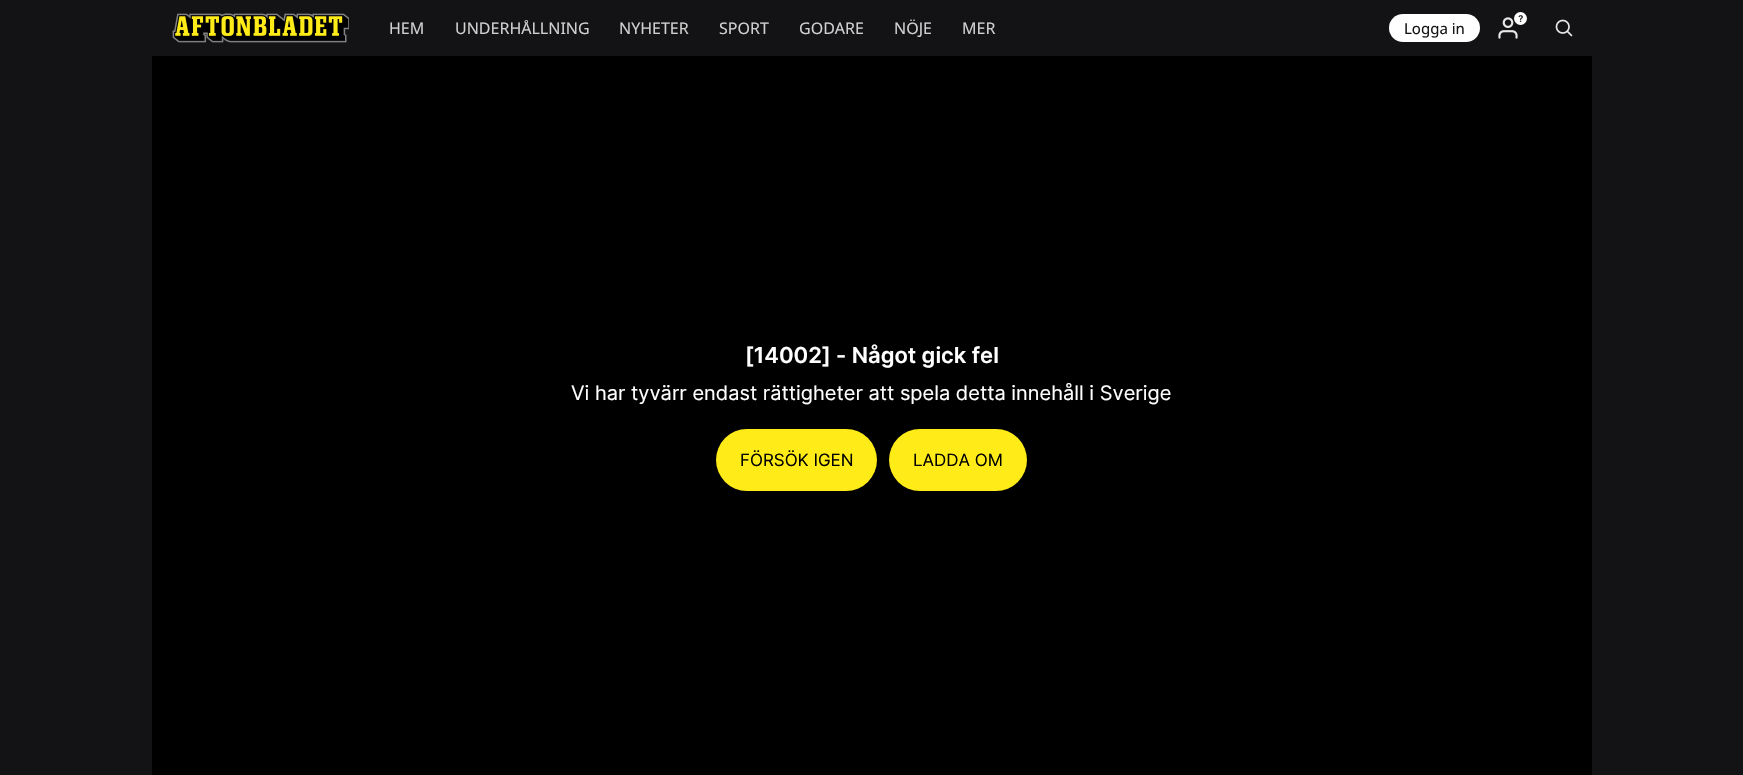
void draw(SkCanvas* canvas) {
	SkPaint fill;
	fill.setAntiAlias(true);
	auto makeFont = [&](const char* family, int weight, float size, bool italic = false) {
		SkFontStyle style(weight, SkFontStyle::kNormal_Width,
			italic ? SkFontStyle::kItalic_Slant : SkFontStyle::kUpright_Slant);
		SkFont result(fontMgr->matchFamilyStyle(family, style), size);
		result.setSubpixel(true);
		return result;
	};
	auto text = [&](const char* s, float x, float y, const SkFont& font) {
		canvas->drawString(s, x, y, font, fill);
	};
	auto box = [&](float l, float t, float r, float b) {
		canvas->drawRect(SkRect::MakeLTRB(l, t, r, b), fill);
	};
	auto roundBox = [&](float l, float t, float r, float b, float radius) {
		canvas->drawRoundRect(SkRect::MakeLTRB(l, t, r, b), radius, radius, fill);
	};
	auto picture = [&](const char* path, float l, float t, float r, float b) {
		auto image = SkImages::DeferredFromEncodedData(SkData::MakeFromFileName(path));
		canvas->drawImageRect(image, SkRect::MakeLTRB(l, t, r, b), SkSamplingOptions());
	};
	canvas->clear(0xFF131315);
	picture("image0.png", 172, 13, 349, 43);
	fill.setColor(0xFFFFFFFF);
	roundBox(1389, 14, 1480, 42, 14);
	picture("image1.png", 1498, 17, 1518, 39);
	canvas->drawCircle(1520.5f, 18.5f, 6.5f, fill);
	picture("image2.png", 1518, 15, 1523, 22);
	picture("image3.png", 1555, 19, 1573, 37);
	fill.setColor(0xFF000000);
	box(152, 56, 1592, 775);
	fill.setColor(0xFFFFEB18);
	roundBox(716, 429, 877, 491, 31);
	roundBox(889, 429, 1027, 491, 31);
	auto font1 = makeFont("Noto Sans", 400, 16);
	fill.setColor(0xFFD0D0D0);
	text("HEM", 389, 34, font1);
	text("UNDERHÅLLNING", 455, 34, font1);
	text("NYHETER", 619, 34, font1);
	text("SPORT", 719, 34, font1);
	text("GODARE", 799, 34, font1);
	text("NÖJE", 894, 34, font1);
	text("MER", 962, 34, font1);
	auto font2 = makeFont("Noto Sans", 400, 15);
	fill.setColor(0xFF131315);
	text("Logga in", 1404, 34, font2);
	auto font3 = makeFont("Inter", 600, 22);
	fill.setColor(0xFFFFFFFF);
	text("[14002] - Något gick fel", 745, 363, font3);
	auto font4 = makeFont("Inter", 400, 20);
	text("Vi har tyvärr endast rättigheter att spela detta innehåll i Sverige", 571, 400, font4);
	auto font5 = makeFont("Inter", 400, 17);
	fill.setColor(0xFF000000);
	text("FÖRSÖK IGEN", 740, 466, font5);
	text("LADDA OM", 913, 466, font5);
}
